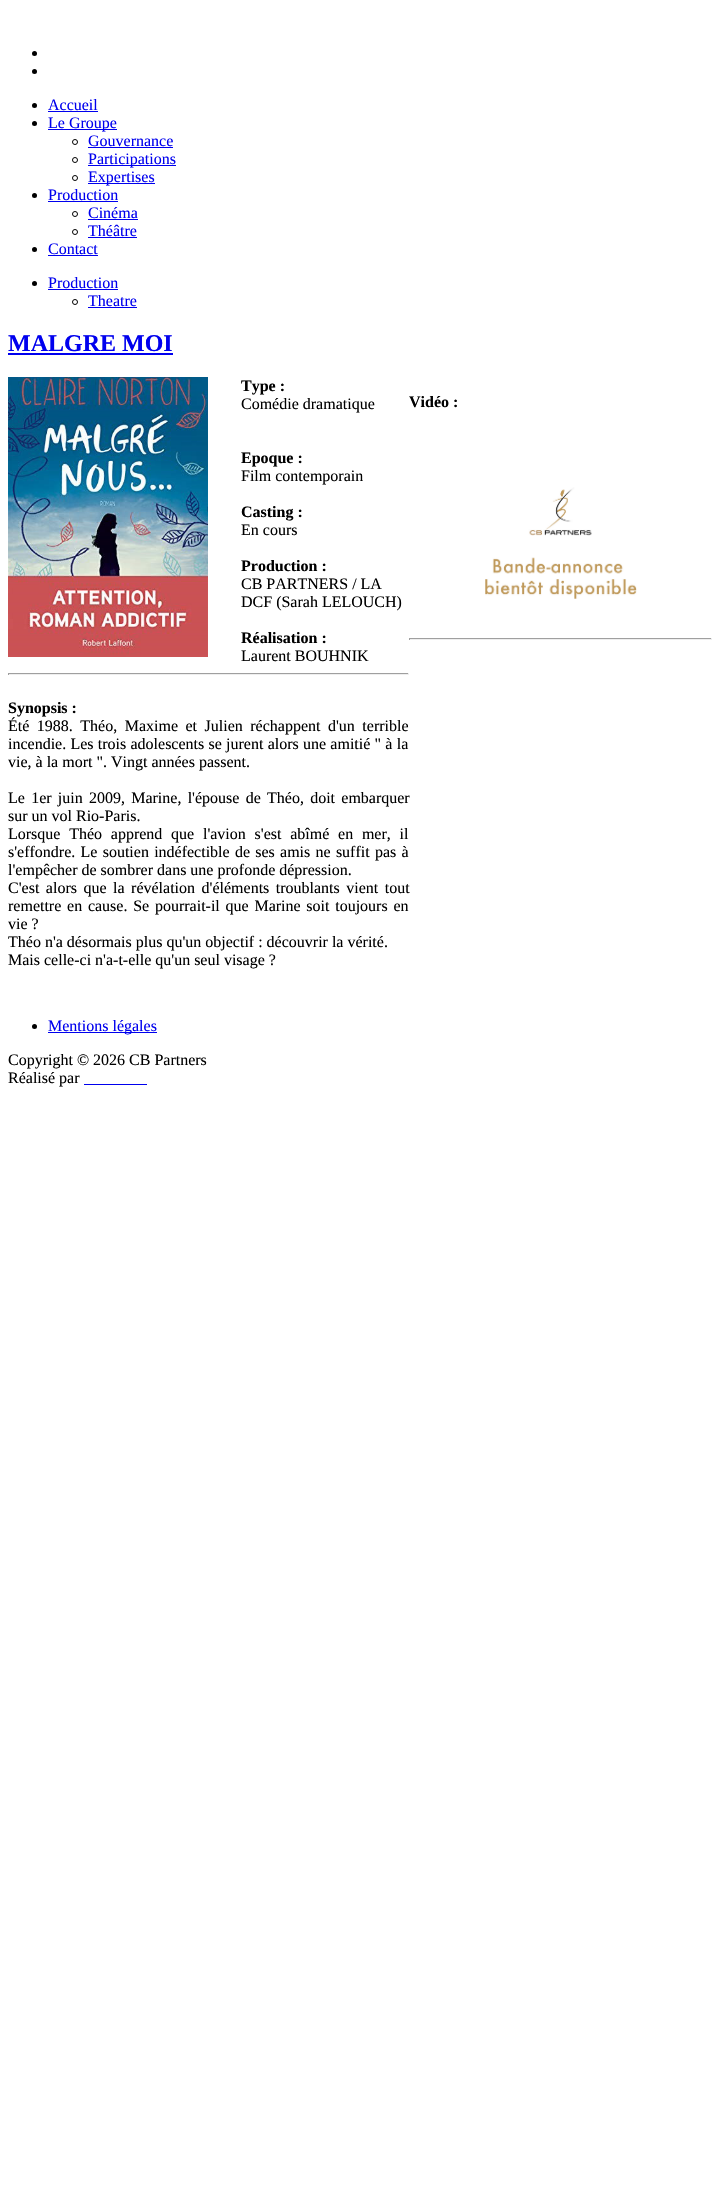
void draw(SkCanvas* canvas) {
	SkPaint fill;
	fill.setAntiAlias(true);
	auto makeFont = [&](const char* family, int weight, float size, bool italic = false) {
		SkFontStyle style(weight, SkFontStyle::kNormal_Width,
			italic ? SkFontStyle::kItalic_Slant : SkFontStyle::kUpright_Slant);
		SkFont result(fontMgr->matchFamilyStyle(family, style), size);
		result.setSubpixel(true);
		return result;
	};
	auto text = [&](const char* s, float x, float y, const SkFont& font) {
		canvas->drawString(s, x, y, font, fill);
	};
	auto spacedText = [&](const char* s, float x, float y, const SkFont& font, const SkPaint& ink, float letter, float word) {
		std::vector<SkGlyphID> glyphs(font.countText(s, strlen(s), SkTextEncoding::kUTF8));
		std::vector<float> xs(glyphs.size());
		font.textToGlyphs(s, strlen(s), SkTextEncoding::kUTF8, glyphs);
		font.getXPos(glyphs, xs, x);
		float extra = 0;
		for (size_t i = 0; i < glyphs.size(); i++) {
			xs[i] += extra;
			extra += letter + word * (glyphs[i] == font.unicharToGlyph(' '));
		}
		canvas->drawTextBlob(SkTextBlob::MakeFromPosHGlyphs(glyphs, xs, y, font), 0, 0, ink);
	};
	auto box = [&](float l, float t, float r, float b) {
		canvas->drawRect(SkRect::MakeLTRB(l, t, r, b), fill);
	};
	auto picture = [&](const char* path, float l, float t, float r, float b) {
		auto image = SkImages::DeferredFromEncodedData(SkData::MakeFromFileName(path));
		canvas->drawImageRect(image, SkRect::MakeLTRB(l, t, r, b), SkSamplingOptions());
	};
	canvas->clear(0xFFFFFFFF);
	fill.setColor(0xFF000000);
	canvas->drawCircle(34.5f, 53.5f, 2.5f, fill);
	canvas->drawCircle(34.5f, 71.5f, 2.5f, fill);
	canvas->drawCircle(34.5f, 105.5f, 2.5f, fill);
	fill.setColor(0xFF0000EE);
	box(48, 111, 98, 112);
	fill.setColor(0xFF000000);
	canvas->drawCircle(34.5f, 123.5f, 2.5f, fill);
	fill.setColor(0xFF0000EE);
	box(48, 129, 117, 130);
	fill.setStyle(SkPaint::kStroke_Style);
	fill.setStrokeWidth(1);
	fill.setColor(0xFF000000);
	canvas->drawCircle(75, 142, 2.5f, fill);
	fill.setStyle(SkPaint::kFill_Style);
	fill.setColor(0xFF0000EE);
	box(88, 147, 173, 148);
	fill.setStyle(SkPaint::kStroke_Style);
	fill.setColor(0xFF000000);
	canvas->drawCircle(75, 160, 2.5f, fill);
	fill.setStyle(SkPaint::kFill_Style);
	fill.setColor(0xFF0000EE);
	box(88, 165, 176, 166);
	fill.setStyle(SkPaint::kStroke_Style);
	fill.setColor(0xFF000000);
	canvas->drawCircle(75, 178, 2.5f, fill);
	fill.setStyle(SkPaint::kFill_Style);
	fill.setColor(0xFF0000EE);
	box(88, 183, 155, 184);
	fill.setColor(0xFF000000);
	canvas->drawCircle(34.5f, 195.5f, 2.5f, fill);
	fill.setColor(0xFF0000EE);
	box(48, 201, 118, 202);
	fill.setStyle(SkPaint::kStroke_Style);
	fill.setColor(0xFF000000);
	canvas->drawCircle(75, 214, 2.5f, fill);
	fill.setStyle(SkPaint::kFill_Style);
	fill.setColor(0xFF0000EE);
	box(88, 219, 138, 220);
	fill.setStyle(SkPaint::kStroke_Style);
	fill.setColor(0xFF000000);
	canvas->drawCircle(75, 232, 2.5f, fill);
	fill.setStyle(SkPaint::kFill_Style);
	fill.setColor(0xFF0000EE);
	box(88, 237, 137, 238);
	fill.setColor(0xFF000000);
	canvas->drawCircle(34.5f, 249.5f, 2.5f, fill);
	fill.setColor(0xFF0000EE);
	box(48, 255, 98, 256);
	fill.setColor(0xFF000000);
	canvas->drawCircle(34.5f, 283.5f, 2.5f, fill);
	fill.setColor(0xFF0000EE);
	box(48, 289, 118, 290);
	fill.setStyle(SkPaint::kStroke_Style);
	fill.setColor(0xFF000000);
	canvas->drawCircle(75, 302, 2.5f, fill);
	fill.setStyle(SkPaint::kFill_Style);
	fill.setColor(0xFF0000EE);
	box(88, 307, 137, 308);
	box(8, 353, 173, 355);
	picture("image0.png", 8, 377, 208, 657);
	fill.setColor(0xFF9F9F9F);
	box(8, 673, 409, 674);
	fill.setColor(0xFFEEEEEE);
	box(408, 673, 409, 675);
	box(8, 674, 409, 675);
	fill.setColor(0xFF9F9F9F);
	box(8, 673, 9, 675);
	picture("image1.png", 485, 487, 637, 599);
	box(409, 638, 712, 639);
	fill.setColor(0xFFEEEEEE);
	box(711, 638, 712, 640);
	box(409, 639, 712, 640);
	fill.setColor(0xFF9F9F9F);
	box(409, 638, 410, 640);
	fill.setColor(0xFF000000);
	canvas->drawCircle(34.5f, 1026.5f, 2.5f, fill);
	fill.setColor(0xFF0000EE);
	box(48, 1032, 157, 1033);
	box(84, 1084, 147, 1085);
	auto font1 = makeFont("Liberation Serif", 400, 16);
	text("Accueil", 48, 110, font1);
	text("Le Groupe", 48, 128, font1);
	text("Gouvernance", 88, 146, font1);
	text("Participations", 88, 164, font1);
	text("Expertises", 88, 182, font1);
	text("Production", 48, 200, font1);
	text("Cinéma", 88, 218, font1);
	text("Théâtre", 88, 236, font1);
	text("Contact", 48, 254, font1);
	text("Production", 48, 288, font1);
	text("Theatre", 88, 306, font1);
	auto font2 = makeFont("Liberation Serif", 700, 24);
	text("MALGRE MOI", 8, 351, font2);
	auto font3 = makeFont("Liberation Serif", 700, 16);
	fill.setColor(0xFF000000);
	text("Type :", 241, 391, font3);
	text("Comédie dramatique", 241, 409, font1);
	text("Epoque :", 241, 463, font3);
	text("Film contemporain", 241, 481, font1);
	text("Casting :", 241, 517, font3);
	text("En cours", 241, 535, font1);
	text("Production :", 241, 571, font3);
	text("CB PARTNERS / LA", 241, 589, font1);
	text("DCF (Sarah LELOUCH)", 241, 607, font1);
	text("Réalisation :", 241, 643, font3);
	text("Laurent BOUHNIK", 241, 661, font1);
	text("Synopsis :", 8, 713, font3);
	spacedText("Été 1988. Théo, Maxime et Julien réchappent d'un terrible", 8, 731, font1, fill, 0, 3.5f);
	spacedText("incendie. Les trois adolescents se jurent alors une amitié \" à la", 8, 749, font1, fill, 0, 0.25f);
	text("vie, à la mort \". Vingt années passent.", 8, 767, font1);
	spacedText("Le 1er juin 2009, Marine, l'épouse de Théo, doit embarquer", 8, 803, font1, fill, 0, 2.25f);
	text("sur un vol Rio-Paris.", 8, 821, font1);
	spacedText("Lorsque Théo apprend que l'avion s'est abîmé en mer, il", 8, 839, font1, fill, 0, 4.75f);
	spacedText("s'effondre. Le soutien indéfectible de ses amis ne suffit pas à", 8, 857, font1, fill, 0, 1.25f);
	text("l'empêcher de sombrer dans une profonde dépression.", 8, 875, font1);
	spacedText("C'est alors que la révélation d'éléments troublants vient tout", 8, 893, font1, fill, 0, 2.5f);
	spacedText("remettre en cause. Se pourrait-il que Marine soit toujours en", 8, 911, font1, fill, 0, 1.75f);
	text("vie ?", 8, 929, font1);
	text("Théo n'a désormais plus qu'un objectif : découvrir la vérité.", 8, 947, font1);
	text("Mais celle-ci n'a-t-elle qu'un seul visage ?", 8, 965, font1);
	text("Vidéo :", 409, 407, font3);
	fill.setColor(0xFF0000EE);
	text("Mentions légales", 48, 1031, font1);
	fill.setColor(0xFF000000);
	text("Copyright © 2026 CB Partners", 8, 1065, font1);
	text("Réalisé par", 8, 1083, font1);
}
